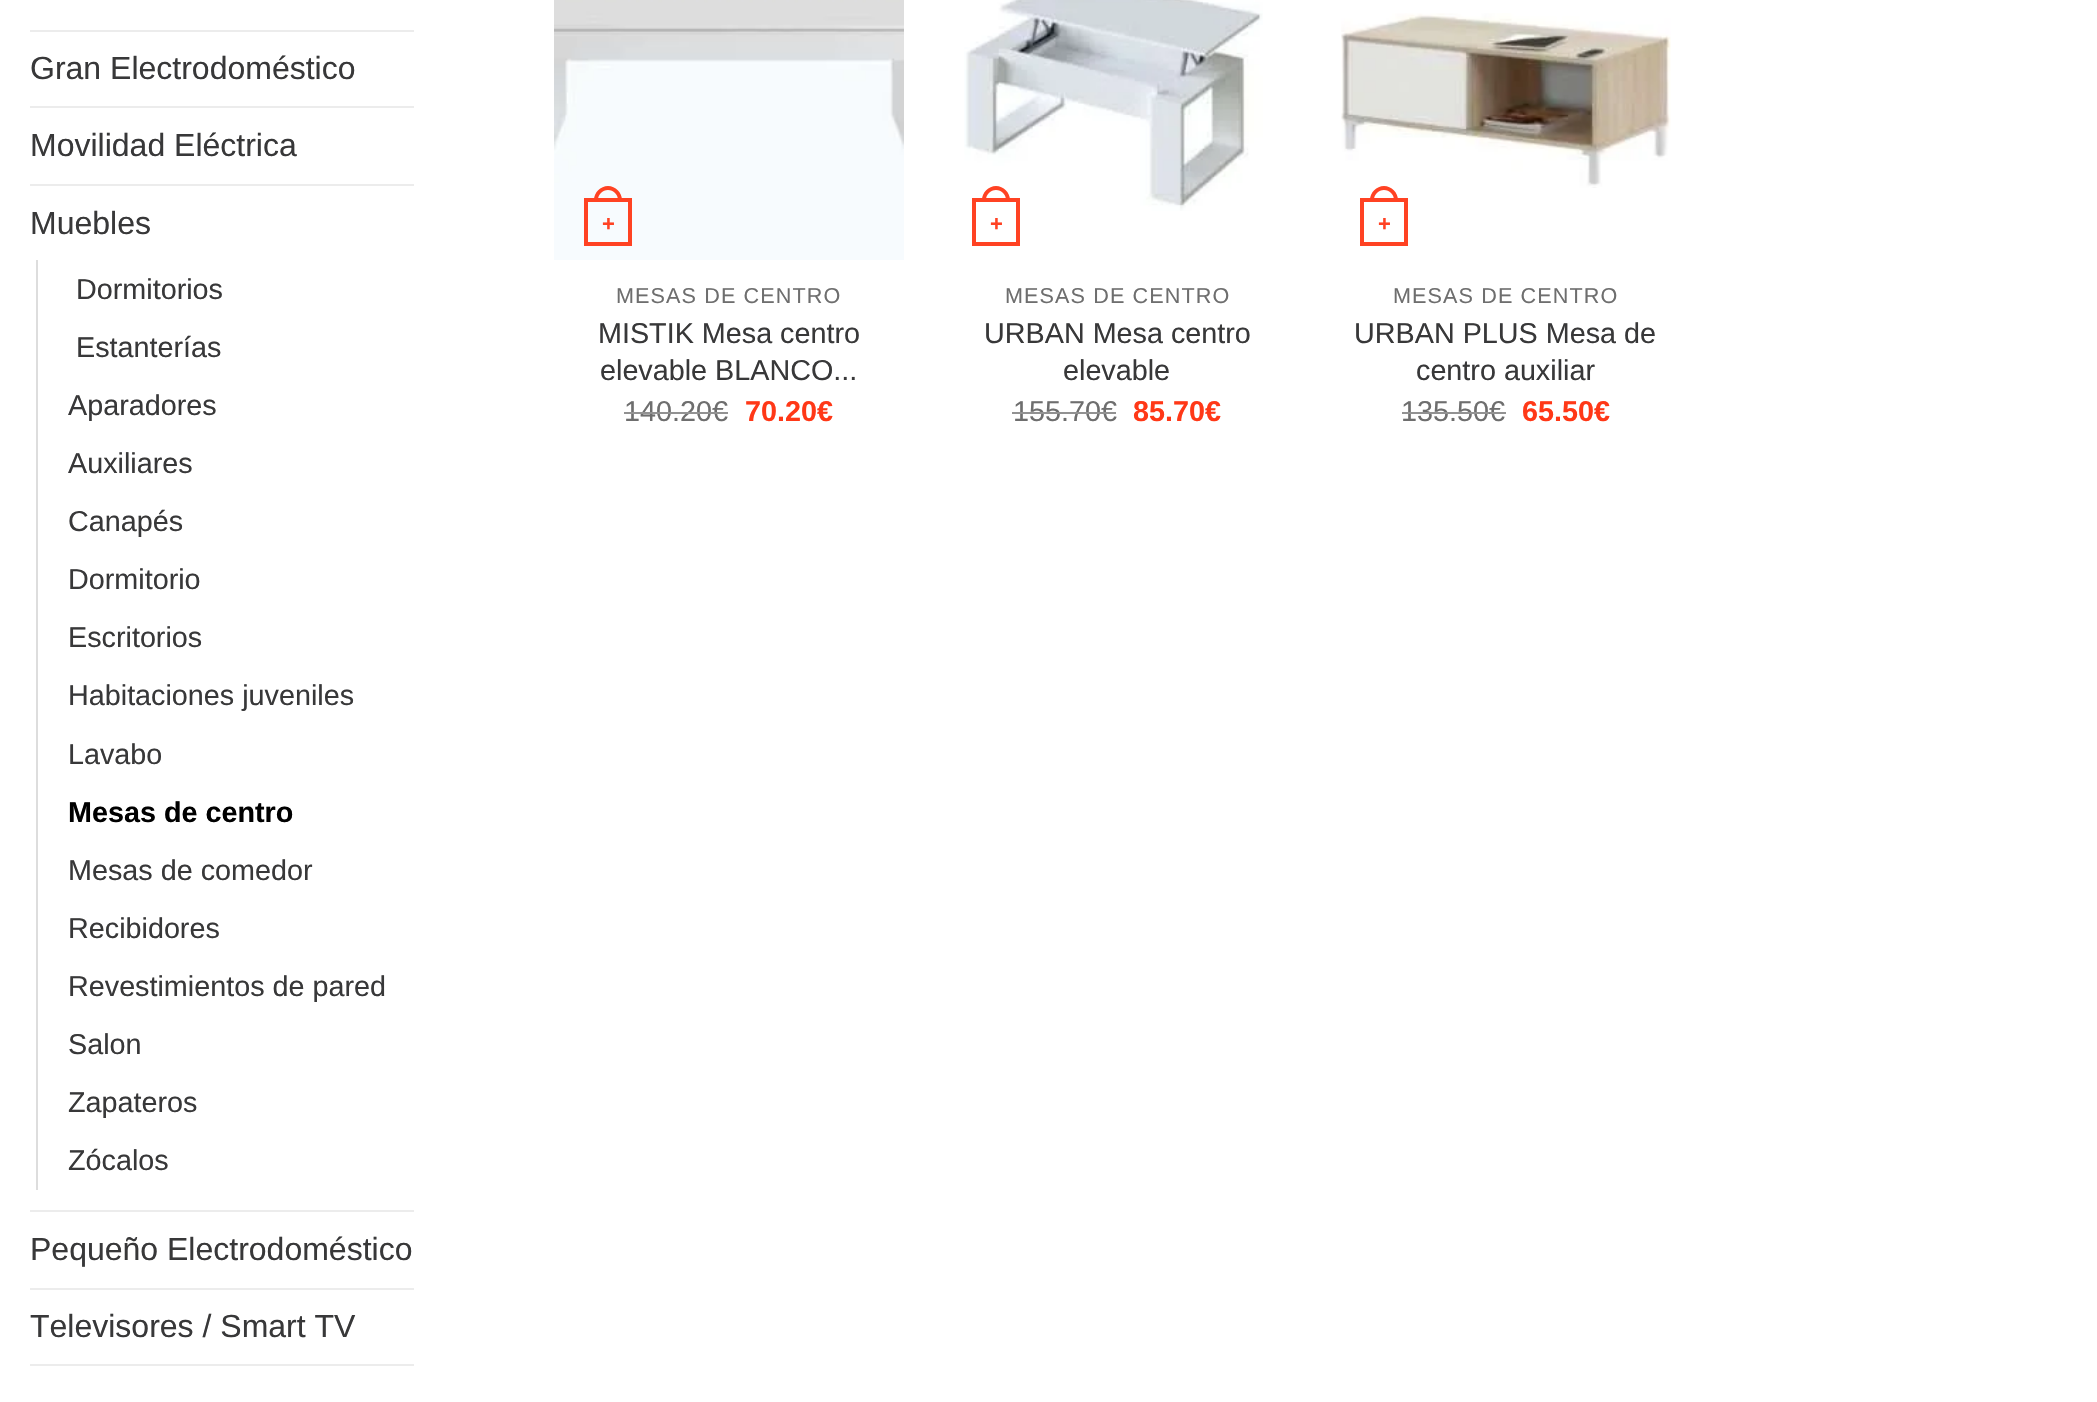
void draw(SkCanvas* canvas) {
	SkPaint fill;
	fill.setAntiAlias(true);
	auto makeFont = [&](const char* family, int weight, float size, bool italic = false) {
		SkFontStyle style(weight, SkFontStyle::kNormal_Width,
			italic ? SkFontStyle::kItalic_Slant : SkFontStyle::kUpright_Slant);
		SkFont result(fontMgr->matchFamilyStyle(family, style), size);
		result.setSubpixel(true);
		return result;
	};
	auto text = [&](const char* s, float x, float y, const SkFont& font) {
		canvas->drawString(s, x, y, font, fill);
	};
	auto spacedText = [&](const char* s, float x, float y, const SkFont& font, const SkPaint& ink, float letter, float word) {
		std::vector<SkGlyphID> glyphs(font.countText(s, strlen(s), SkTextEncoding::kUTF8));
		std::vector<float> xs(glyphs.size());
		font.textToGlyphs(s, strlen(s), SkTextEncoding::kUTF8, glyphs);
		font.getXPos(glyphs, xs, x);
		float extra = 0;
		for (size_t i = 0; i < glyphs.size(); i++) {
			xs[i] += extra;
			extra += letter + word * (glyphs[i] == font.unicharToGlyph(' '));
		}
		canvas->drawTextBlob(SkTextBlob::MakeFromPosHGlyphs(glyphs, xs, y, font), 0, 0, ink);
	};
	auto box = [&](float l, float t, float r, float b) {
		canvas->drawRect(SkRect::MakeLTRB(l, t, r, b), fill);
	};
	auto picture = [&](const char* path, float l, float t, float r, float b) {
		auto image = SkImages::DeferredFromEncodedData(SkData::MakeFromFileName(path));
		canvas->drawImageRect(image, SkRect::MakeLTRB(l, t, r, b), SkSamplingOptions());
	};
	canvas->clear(0xFFFFFFFF);
	fill.setColor(0xFFECECEC);
	box(30, 30, 414, 32);
	box(30, 106, 414, 108);
	box(30, 184, 414, 186);
	fill.setColor(0xFFDDDDDD);
	box(36, 260, 38, 1190);
	fill.setColor(0xFFECECEC);
	box(30, 1210, 414, 1212);
	box(30, 1288, 414, 1290);
	box(30, 1364, 414, 1366);
	picture("image0.png", 554, 0, 904, 260);
	fill.setStyle(SkPaint::kStroke_Style);
	fill.setStrokeWidth(4);
	fill.setColor(0xFFFF4223);
	canvas->drawRect(SkRect::MakeLTRB(586, 200, 630, 244), fill);
	fill.setStyle(SkPaint::kFill_Style);
	canvas->drawPath(SkPathBuilder(SkPathFillType::kEvenOdd).moveTo(608, 186).cubicTo(615.5f, 186, 622, 192.5f, 622, 200).lineTo(622, 202).lineTo(594, 202).lineTo(594, 200).cubicTo(594, 192.5f, 600.5f, 186, 608, 186).close().moveTo(608, 190).cubicTo(613.5f, 190, 618, 194.5f, 618, 200).lineTo(618, 202).lineTo(598, 202).lineTo(598, 200).cubicTo(598, 194.5f, 602.5f, 190, 608, 190).close().detach(), fill);
	picture("image1.png", 964, 0, 1263, 211);
	fill.setStyle(SkPaint::kStroke_Style);
	canvas->drawRect(SkRect::MakeLTRB(974, 200, 1018, 244), fill);
	fill.setStyle(SkPaint::kFill_Style);
	canvas->drawPath(SkPathBuilder(SkPathFillType::kEvenOdd).moveTo(996, 186).cubicTo(1003.5f, 186, 1010, 192.5f, 1010, 200).lineTo(1010, 202).lineTo(982, 202).lineTo(982, 200).cubicTo(982, 192.5f, 988.5f, 186, 996, 186).close().moveTo(996, 190).cubicTo(1001.5f, 190, 1006, 194.5f, 1006, 200).lineTo(1006, 202).lineTo(986, 202).lineTo(986, 200).cubicTo(986, 194.5f, 990.5f, 190, 996, 190).close().detach(), fill);
	picture("image2.png", 1341, 13, 1671, 188);
	fill.setStyle(SkPaint::kStroke_Style);
	canvas->drawRect(SkRect::MakeLTRB(1362, 200, 1406, 244), fill);
	fill.setStyle(SkPaint::kFill_Style);
	canvas->drawPath(SkPathBuilder(SkPathFillType::kEvenOdd).moveTo(1384, 186).cubicTo(1391.5f, 186, 1398, 192.5f, 1398, 200).lineTo(1398, 202).lineTo(1370, 202).lineTo(1370, 200).cubicTo(1370, 192.5f, 1376.5f, 186, 1384, 186).close().moveTo(1384, 190).cubicTo(1389.5f, 190, 1394, 194.5f, 1394, 200).lineTo(1394, 202).lineTo(1374, 202).lineTo(1374, 200).cubicTo(1374, 194.5f, 1378.5f, 190, 1384, 190).close().detach(), fill);
	auto font1 = makeFont("Liberation Sans", 400, 32);
	fill.setColor(0xFF383839);
	text("Gran Electrodoméstico", 30, 79, font1);
	text("Movilidad Eléctrica", 30, 156, font1);
	text("Muebles", 30, 234, font1);
	auto font2 = makeFont("Liberation Sans", 400, 28.75f);
	text("Dormitorios", 76, 299, font2);
	text("Estanterías", 76, 357, font2);
	text("Aparadores", 68, 415, font2);
	text("Auxiliares", 68, 473, font2);
	text("Canapés", 68, 531, font2);
	text("Dormitorio", 68, 589, font2);
	text("Escritorios", 68, 647, font2);
	text("Habitaciones juveniles", 68, 705, font2);
	text("Lavabo", 68, 764, font2);
	auto font3 = makeFont("Liberation Sans", 700, 28.75f);
	fill.setColor(0xFF000000);
	text("Mesas de centro", 68, 822, font3);
	fill.setColor(0xFF383839);
	text("Mesas de comedor", 68, 880, font2);
	text("Recibidores", 68, 938, font2);
	text("Revestimientos de pared", 68, 996, font2);
	text("Salon", 68, 1054, font2);
	text("Zapateros", 68, 1112, font2);
	text("Zócalos", 68, 1170, font2);
	text("Pequeño Electrodoméstico", 30, 1260, font1);
	text("Televisores / Smart TV", 30, 1337, font1);
	auto font4 = makeFont("Liberation Sans", 700, 22);
	fill.setColor(0xFFFF4223);
	text("+", 602, 231, font4);
	auto font5 = makeFont("Liberation Sans", 400, 21.6f);
	fill.setColor(0xFF6E6E6E);
	spacedText("MESAS DE CENTRO", 616, 303, font5, fill, 1.1f, 0);
	fill.setColor(0xFF383839);
	text("MISTIK Mesa centro", 598, 343, font2);
	text("elevable BLANCO...", 600, 380, font2);
	fill.setColor(0xFF6E6E6E);
	text("140.20€", 624, 421, font2);
	fill.setColor(0xFF929292);
	box(624, 412, 728, 414);
	fill.setColor(0xFFFF3817);
	text("70.20€", 745, 421, font3);
	fill.setColor(0xFFFF4223);
	text("+", 990, 231, font4);
	fill.setColor(0xFF6E6E6E);
	spacedText("MESAS DE CENTRO", 1005, 303, font5, fill, 1.1f, 0);
	fill.setColor(0xFF383839);
	text("URBAN Mesa centro", 984, 343, font2);
	text("elevable", 1063, 380, font2);
	fill.setColor(0xFF6E6E6E);
	text("155.70€", 1013, 421, font2);
	fill.setColor(0xFF929292);
	box(1012, 412, 1116, 414);
	fill.setColor(0xFFFF3817);
	text("85.70€", 1133, 421, font3);
	fill.setColor(0xFFFF4223);
	text("+", 1378, 231, font4);
	fill.setColor(0xFF6E6E6E);
	spacedText("MESAS DE CENTRO", 1393, 303, font5, fill, 1.1f, 0);
	fill.setColor(0xFF383839);
	text("URBAN PLUS Mesa de", 1354, 343, font2);
	text("centro auxiliar", 1416, 380, font2);
	fill.setColor(0xFF6E6E6E);
	text("135.50", 1401, 421, font2);
	fill.setColor(0xFF929292);
	box(1402, 412, 1490, 414);
	fill.setColor(0xFF6E6E6E);
	text("€", 1489, 421, font2);
	fill.setColor(0xFF929292);
	box(1490, 412, 1506, 414);
	fill.setColor(0xFFFF3817);
	text("65.50€", 1522, 421, font3);
}
